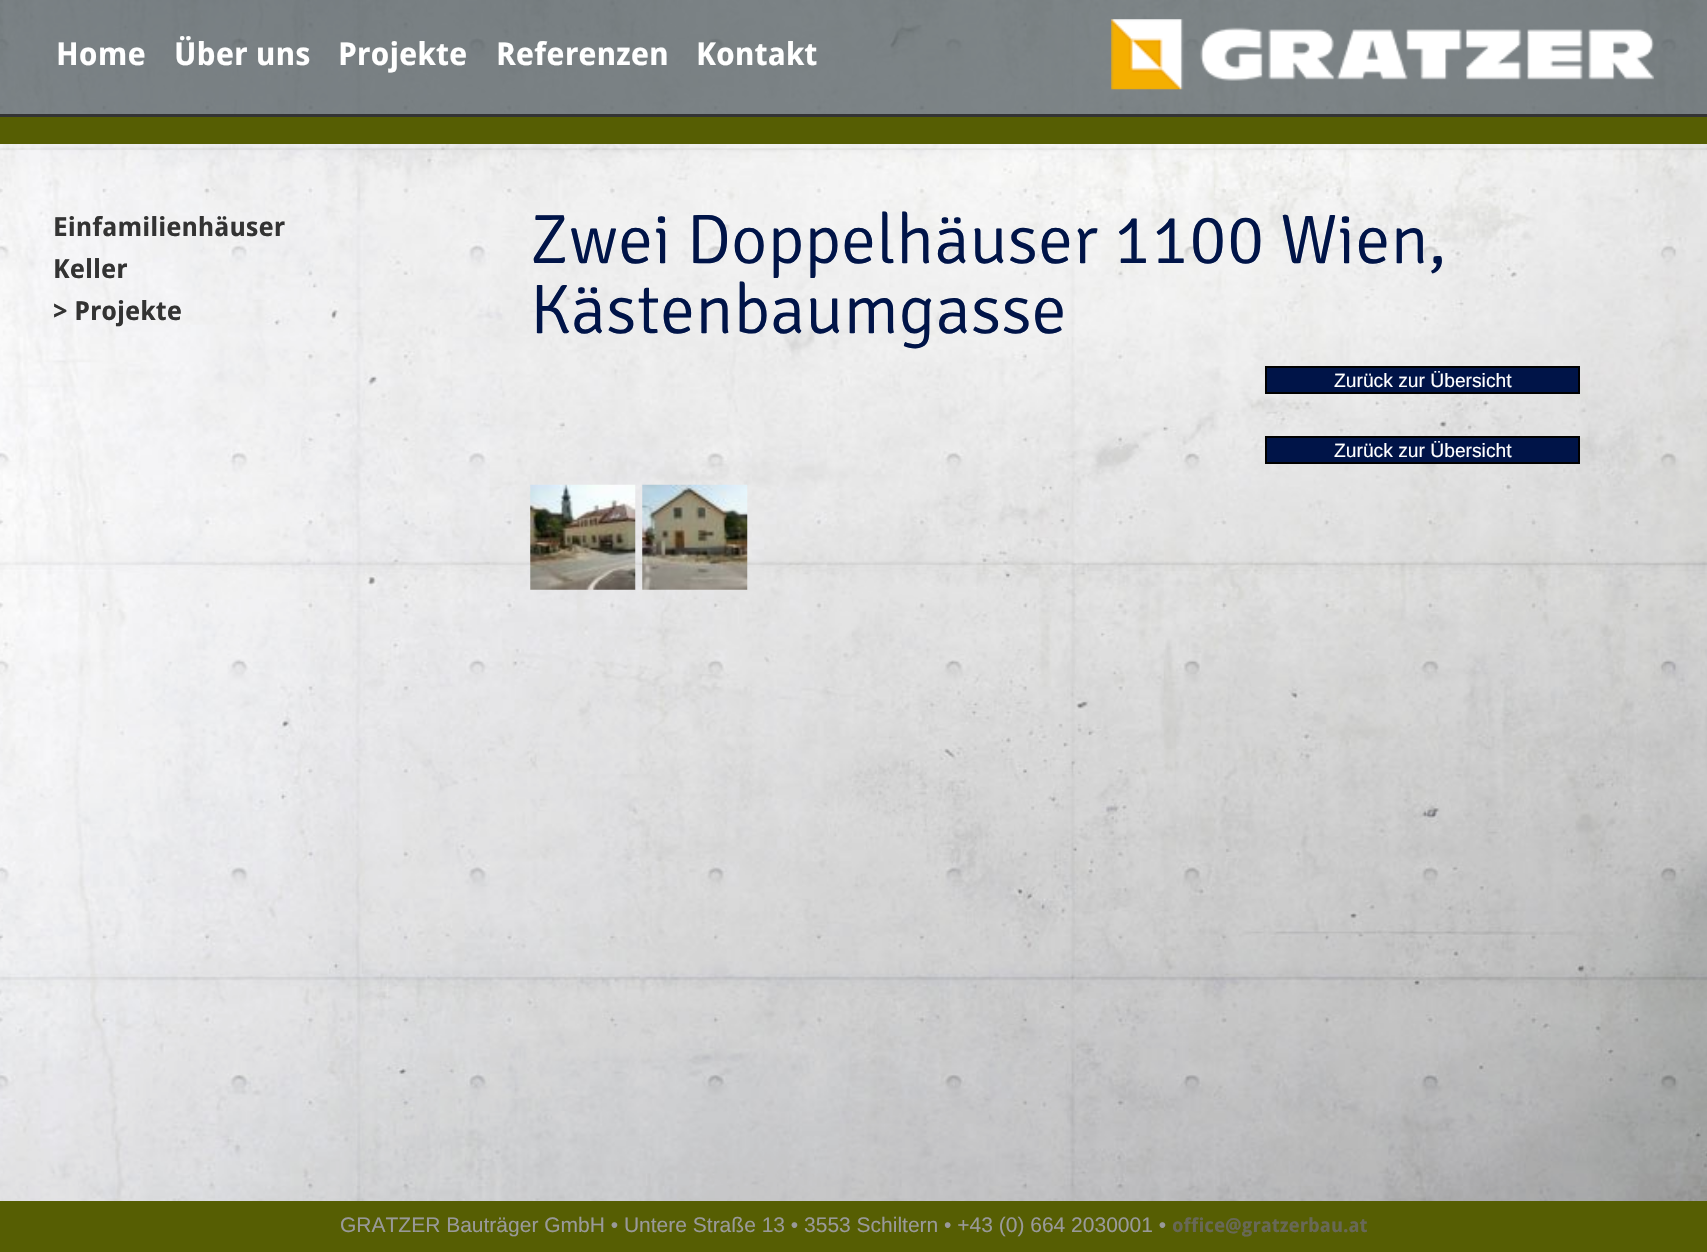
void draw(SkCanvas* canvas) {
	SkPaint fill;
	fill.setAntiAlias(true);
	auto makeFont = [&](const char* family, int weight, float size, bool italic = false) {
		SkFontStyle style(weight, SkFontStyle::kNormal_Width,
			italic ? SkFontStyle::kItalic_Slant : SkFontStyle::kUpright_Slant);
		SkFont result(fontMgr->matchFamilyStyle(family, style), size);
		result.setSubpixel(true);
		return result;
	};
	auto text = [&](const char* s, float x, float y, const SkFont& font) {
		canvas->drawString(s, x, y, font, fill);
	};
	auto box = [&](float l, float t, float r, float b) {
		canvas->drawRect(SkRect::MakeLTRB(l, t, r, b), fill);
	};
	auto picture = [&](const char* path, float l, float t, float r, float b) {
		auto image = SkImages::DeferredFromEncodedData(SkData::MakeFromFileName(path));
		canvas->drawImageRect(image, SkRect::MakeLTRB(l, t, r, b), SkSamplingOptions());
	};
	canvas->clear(0xFFFFFFFF);
	picture("image0.png", 0, 0, 1707, 1201);
	fill.setColor(0xB3475155);
	box(0, 0, 1707, 114);
	fill.setColor(0xFF333333);
	box(0, 114, 1707, 117);
	picture("image1.png", 1111, 19, 1654, 90);
	fill.setColor(0xFF565E03);
	box(0, 117, 1707, 144);
	fill.setColor(0xFF001448);
	canvas->drawRect(SkRect::MakeLTRB(1266, 367, 1579, 393), fill);
	fill.setStyle(SkPaint::kStroke_Style);
	fill.setStrokeWidth(2);
	fill.setColor(0xFF000000);
	canvas->drawRect(SkRect::MakeLTRB(1266, 367, 1579, 393), fill);
	fill.setStyle(SkPaint::kFill_Style);
	fill.setColor(0xFF001448);
	canvas->drawRect(SkRect::MakeLTRB(1266, 437, 1579, 463), fill);
	fill.setStyle(SkPaint::kStroke_Style);
	fill.setColor(0xFF000000);
	canvas->drawRect(SkRect::MakeLTRB(1266, 437, 1579, 463), fill);
	picture("image2.png", 530, 484, 636, 590);
	picture("image3.png", 642, 484, 748, 590);
	fill.setStyle(SkPaint::kFill_Style);
	fill.setColor(0xFF565E03);
	box(0, 1201, 1707, 1252);
	auto font1 = makeFont("Droid Sans", 700, 31.5f);
	fill.setColor(0xFFFFFFFF);
	text("Home", 56, 65, font1);
	text("Über uns", 174, 65, font1);
	text("Projekte", 338, 65, font1);
	text("Referenzen", 496, 65, font1);
	text("Kontakt", 696, 65, font1);
	auto font2 = makeFont("Droid Sans", 700, 26.25f);
	fill.setColor(0xFF333333);
	text("Einfamilienhäuser", 53, 236, font2);
	text("Keller", 53, 278, font2);
	text("> Projekte", 53, 320, font2);
	auto font3 = makeFont("Signika", 300, 70);
	fill.setColor(0xFF001448);
	text("Zwei Doppelhäuser 1100 Wien,", 530, 263, font3);
	text("Kästenbaumgasse", 530, 333, font3);
	auto font4 = makeFont("Liberation Sans", 400, 19.25f);
	fill.setColor(0xFFFFFFFF);
	text("Zurück zur Übersicht", 1334, 387, font4);
	text("Zurück zur Übersicht", 1334, 457, font4);
	auto font5 = makeFont("Liberation Sans", 400, 21);
	fill.setColor(0xFF999999);
	text("GRATZER Bauträger GmbH • Untere Straße 13 • 3553 Schiltern • +43 (0) 664 2030001 •", 340, 1232, font5);
	auto font6 = makeFont("Droid Sans", 700, 19.25f);
	fill.setColor(0xFF686857);
	text("office@gratzerbau.at", 1172, 1232, font6);
}
